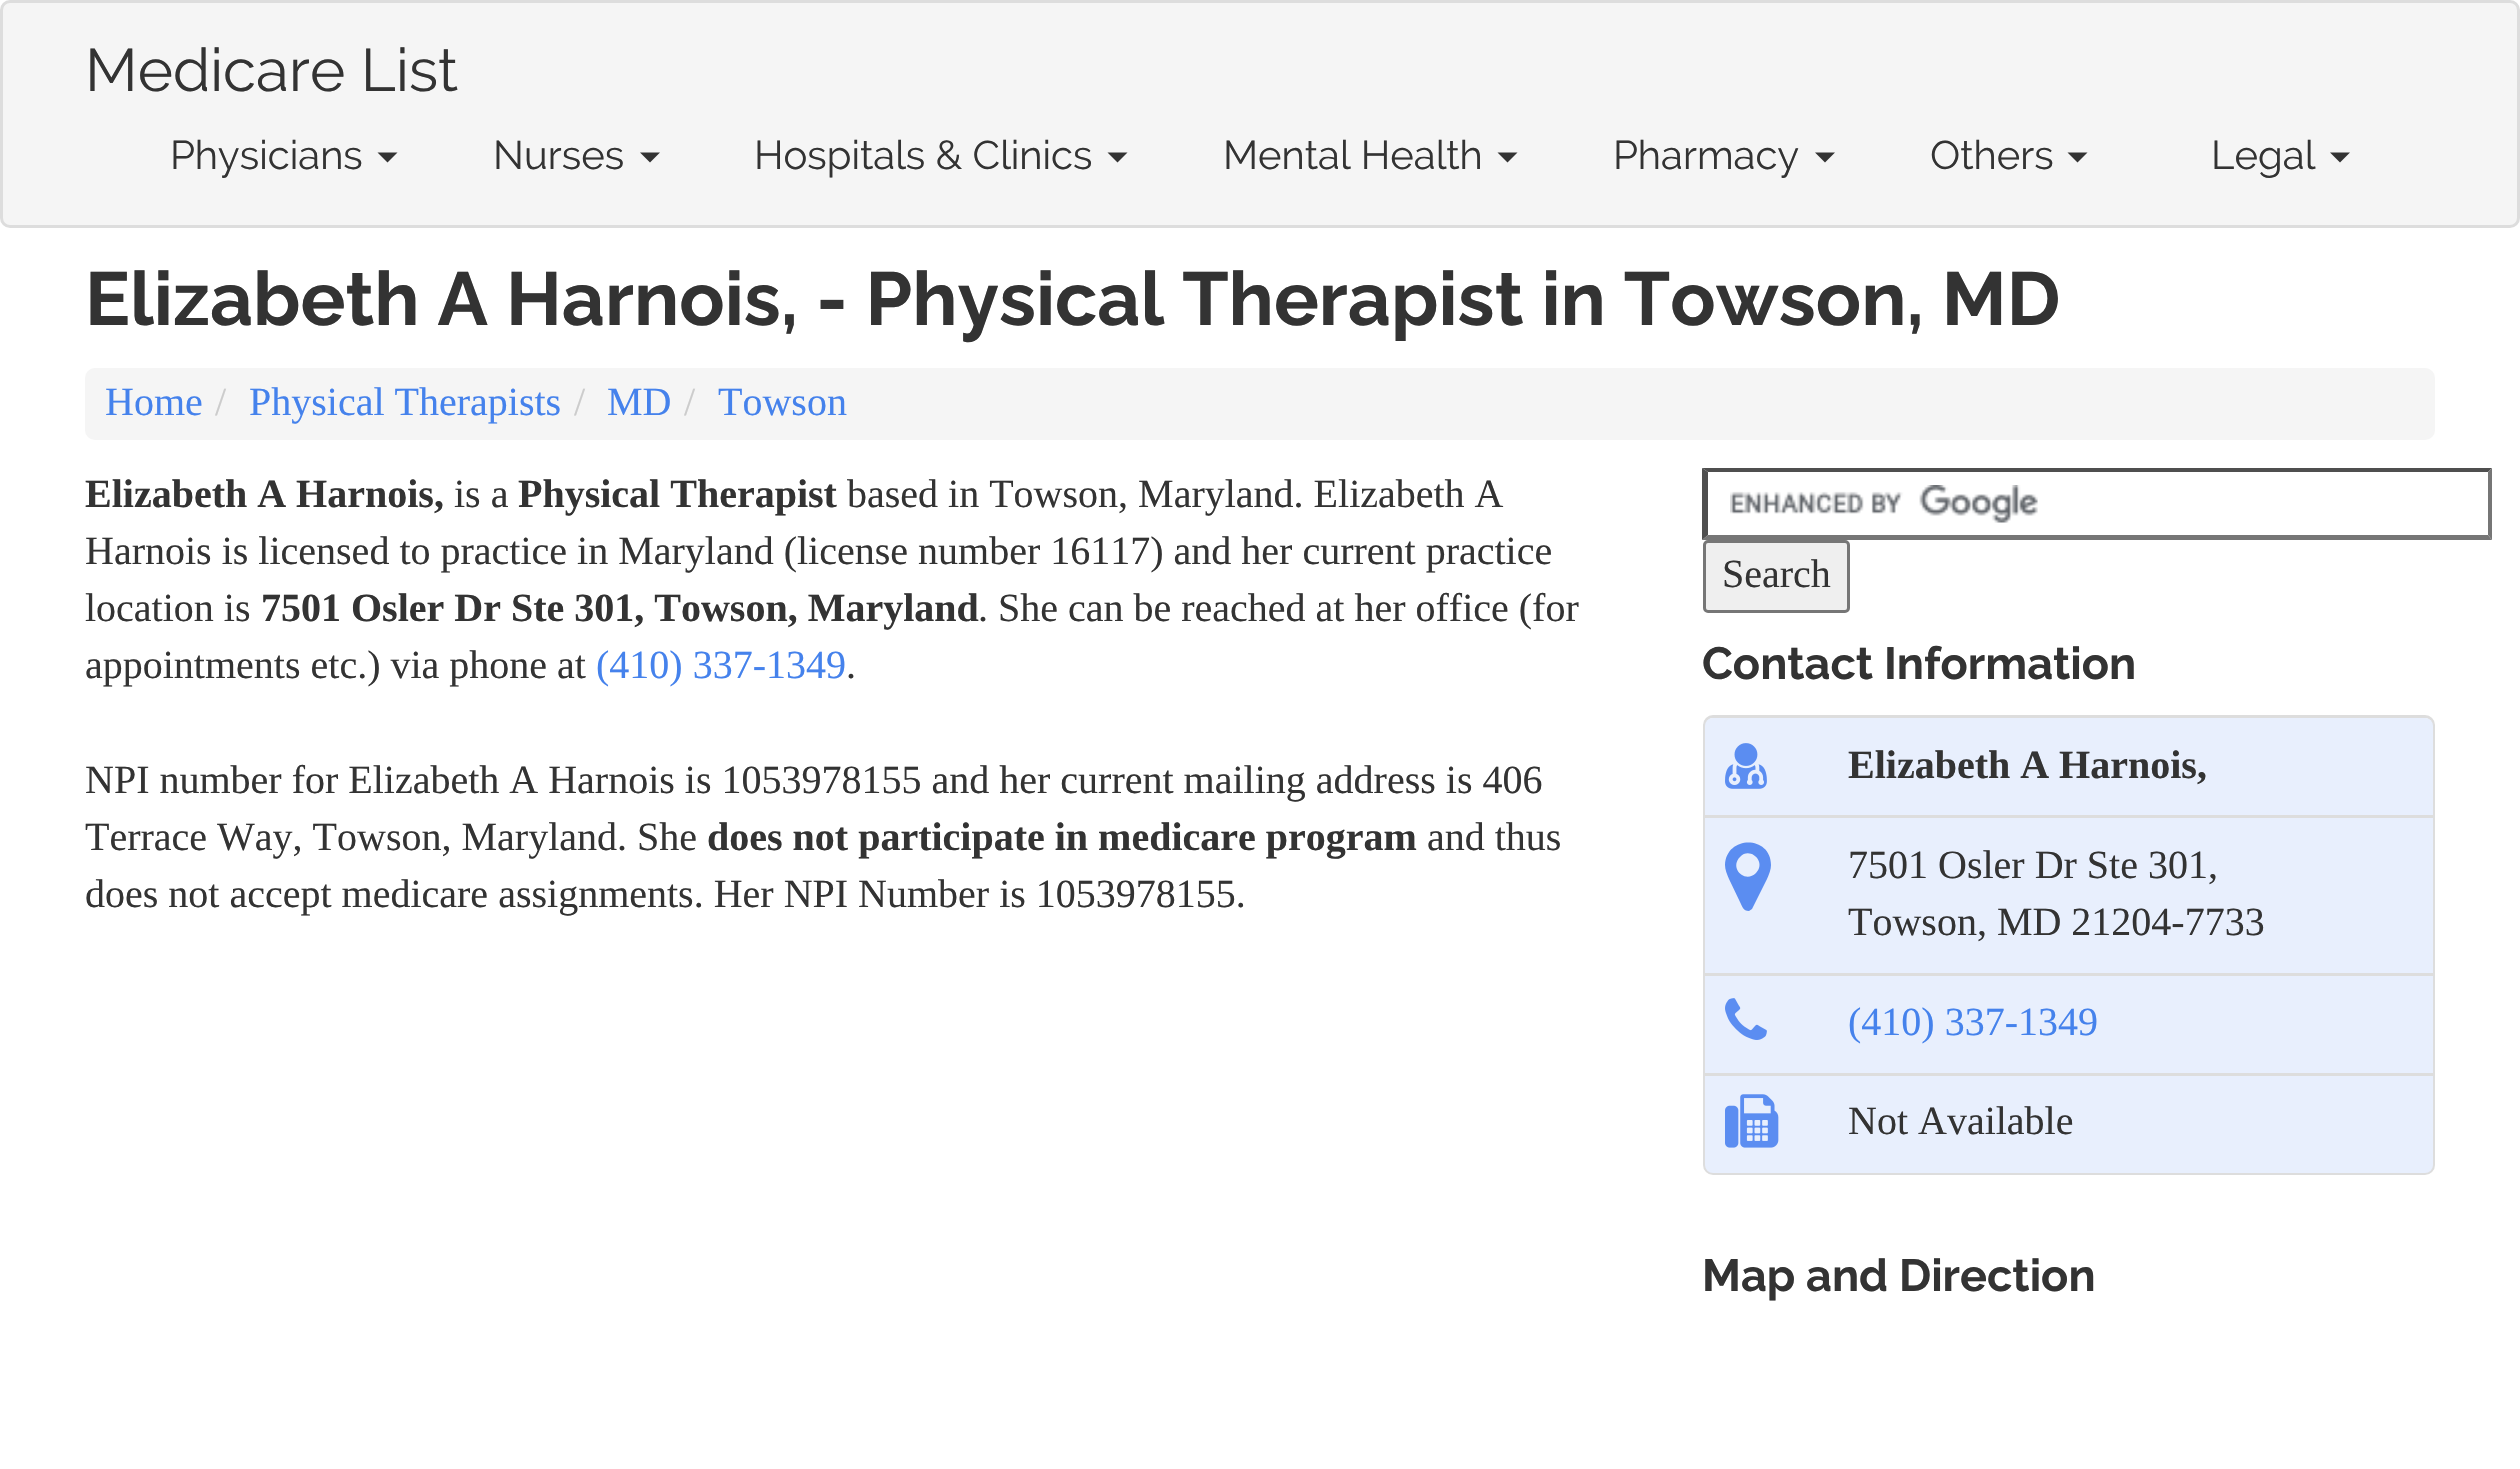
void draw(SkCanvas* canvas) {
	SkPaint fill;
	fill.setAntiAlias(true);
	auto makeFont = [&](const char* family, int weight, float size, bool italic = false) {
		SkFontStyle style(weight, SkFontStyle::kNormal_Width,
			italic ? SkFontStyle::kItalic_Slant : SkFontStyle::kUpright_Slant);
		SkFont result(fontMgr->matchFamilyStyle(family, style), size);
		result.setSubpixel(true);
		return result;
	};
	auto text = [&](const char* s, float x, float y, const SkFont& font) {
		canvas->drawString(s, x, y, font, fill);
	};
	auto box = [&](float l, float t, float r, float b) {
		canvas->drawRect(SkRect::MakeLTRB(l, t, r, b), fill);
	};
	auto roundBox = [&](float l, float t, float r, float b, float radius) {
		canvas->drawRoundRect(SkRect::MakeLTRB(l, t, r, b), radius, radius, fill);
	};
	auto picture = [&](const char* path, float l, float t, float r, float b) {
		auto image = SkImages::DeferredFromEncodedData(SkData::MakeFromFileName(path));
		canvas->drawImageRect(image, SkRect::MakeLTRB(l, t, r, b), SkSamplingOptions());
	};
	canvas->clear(0xFFFFFFFF);
	fill.setColor(0xFFF5F5F5);
	canvas->drawRoundRect(SkRect::MakeLTRB(1.5f, 1.5f, 2518.5f, 226.5f), 8.5f, 8.5f, fill);
	fill.setStyle(SkPaint::kStroke_Style);
	fill.setStrokeWidth(3);
	fill.setColor(0xFFDDDDDD);
	canvas->drawRoundRect(SkRect::MakeLTRB(1.5f, 1.5f, 2518.5f, 226.5f), 8.5f, 8.5f, fill);
	fill.setStyle(SkPaint::kFill_Style);
	fill.setColor(0xFF333333);
	canvas->drawPath(SkPathBuilder().moveTo(377.5f, 152.5f).lineTo(397.5f, 152.5f).lineTo(387.5f, 162.5f).close().detach(), fill);
	canvas->drawPath(SkPathBuilder().moveTo(640, 152.5f).lineTo(660, 152.5f).lineTo(650, 162.5f).close().detach(), fill);
	canvas->drawPath(SkPathBuilder().moveTo(1107.5f, 152.5f).lineTo(1127.5f, 152.5f).lineTo(1117.5f, 162.5f).close().detach(), fill);
	canvas->drawPath(SkPathBuilder().moveTo(1497.5f, 152.5f).lineTo(1517.5f, 152.5f).lineTo(1507.5f, 162.5f).close().detach(), fill);
	canvas->drawPath(SkPathBuilder().moveTo(1815, 152.5f).lineTo(1835, 152.5f).lineTo(1825, 162.5f).close().detach(), fill);
	canvas->drawPath(SkPathBuilder().moveTo(2067.5f, 152.5f).lineTo(2087.5f, 152.5f).lineTo(2077.5f, 162.5f).close().detach(), fill);
	canvas->drawPath(SkPathBuilder().moveTo(2330, 152.5f).lineTo(2350, 152.5f).lineTo(2340, 162.5f).close().detach(), fill);
	fill.setColor(0xFFF5F5F5);
	roundBox(85, 368, 2435, 440, 10);
	picture("image0.png", 1730, 485, 2038, 523);
	fill.setColor(0xFF4F4F4F);
	canvas->drawPath(SkPathBuilder().moveTo(1702, 468).lineTo(2492, 468).lineTo(2488, 472).lineTo(1708, 472).close().detach(), fill);
	fill.setColor(0xFF767676);
	canvas->drawPath(SkPathBuilder().moveTo(2492, 468).lineTo(2492, 540).lineTo(2488, 535).lineTo(2488, 472).close().detach(), fill);
	canvas->drawPath(SkPathBuilder().moveTo(2492, 540).lineTo(1702, 540).lineTo(1708, 535).lineTo(2488, 535).close().detach(), fill);
	fill.setColor(0xFF4F4F4F);
	canvas->drawPath(SkPathBuilder().moveTo(1702, 540).lineTo(1702, 468).lineTo(1708, 472).lineTo(1708, 535).close().detach(), fill);
	fill.setColor(0xFFEFEFEF);
	canvas->drawRoundRect(SkRect::MakeLTRB(1704.5f, 541.5f, 1848.5f, 611.5f), 3.5f, 3.5f, fill);
	fill.setStyle(SkPaint::kStroke_Style);
	fill.setColor(0xFF767676);
	canvas->drawRoundRect(SkRect::MakeLTRB(1704.5f, 541.5f, 1848.5f, 611.5f), 3.5f, 3.5f, fill);
	fill.setColor(0xFFDDDDDD);
	canvas->drawRoundRect(SkRect::MakeLTRB(1704.5f, 716.5f, 2433.5f, 1173.5f), 8.5f, 8.5f, fill);
	fill.setStyle(SkPaint::kFill_Style);
	fill.setColor(0xFFE8EFFD);
	roundBox(1705, 718, 2433, 1173, 8);
	picture("image1.png", 1725, 743, 1767, 789);
	fill.setColor(0xFF5B8DF1);
	canvas->drawPath(SkPathBuilder().moveTo(1756, 873).cubicTo(1767, 862, 1750, 846, 1740, 857).cubicTo(1729, 868, 1745, 884, 1756, 873).close().moveTo(1771, 865).cubicTo(1771, 870, 1769, 874, 1767, 879).lineTo(1752, 909).cubicTo(1751, 910, 1750, 910, 1749, 911).cubicTo(1743, 911, 1742, 906, 1740, 902).lineTo(1729, 879).cubicTo(1727, 874, 1725, 870, 1725, 865).cubicTo(1726, 835, 1771, 835, 1771, 865).close().detach(), fill);
	fill.setColor(0xFFDDDDDD);
	box(1703, 815, 2435, 818);
	picture("image2.png", 1725, 998, 1767, 1040);
	box(1703, 973, 2435, 976);
	picture("image3.png", 1725, 1094, 1779, 1148);
	box(1703, 1073, 2435, 1076);
	auto font1 = makeFont("Raleway", 400, 60);
	fill.setColor(0xFF333333);
	text("Medicare List", 85, 91, font1);
	auto font2 = makeFont("Raleway", 400, 40);
	text("Physicians", 170, 169, font2);
	text("Nurses", 493, 169, font2);
	text("Hospitals & Clinics", 754, 169, font2);
	text("Mental Health", 1223, 169, font2);
	text("Pharmacy", 1613, 169, font2);
	text("Others", 1930, 169, font2);
	text("Legal", 2211, 169, font2);
	auto font3 = makeFont("Raleway", 700, 75);
	text("Elizabeth A Harnois, - Physical Therapist in Towson, MD", 85, 325, font3);
	auto font4 = makeFont("Liberation Serif", 400, 40);
	fill.setColor(0xFF4582EC);
	text("Home", 105, 415, font4);
	fill.setColor(0xFFCCCCCC);
	text("/", 215, 415, font4);
	fill.setColor(0xFF4582EC);
	text("Physical Therapists", 249, 415, font4);
	fill.setColor(0xFFCCCCCC);
	text("/", 574, 415, font4);
	fill.setColor(0xFF4582EC);
	text("MD", 607, 415, font4);
	fill.setColor(0xFFCCCCCC);
	text("/", 684, 415, font4);
	fill.setColor(0xFF4582EC);
	text("Towson", 718, 415, font4);
	auto font5 = makeFont("Liberation Serif", 700, 40);
	fill.setColor(0xFF333333);
	text("Elizabeth A Harnois,", 85, 507, font5);
	text("is a", 454, 507, font4);
	text("Physical Therapist", 518, 507, font5);
	text("based in Towson, Maryland. Elizabeth A", 847, 507, font4);
	text("Harnois is licensed to practice in Maryland (license number 16117) and her current practice", 85, 564, font4);
	text("location is", 85, 621, font4);
	text("7501 Osler Dr Ste 301, Towson, Maryland", 261, 621, font5);
	text(". She can be reached at her office (for", 978, 621, font4);
	text("appointments etc.) via phone at", 85, 678, font4);
	fill.setColor(0xFF4582EC);
	text("(410) 337-1349", 596, 678, font4);
	fill.setColor(0xFF333333);
	text(".", 846, 678, font4);
	text("NPI number for Elizabeth A Harnois is 1053978155 and her current mailing address is 406", 85, 793, font4);
	text("Terrace Way, Towson, Maryland. She", 85, 850, font4);
	text("does not participate in medicare program", 707, 850, font5);
	text("and thus", 1427, 850, font4);
	text("does not accept medicare assignments. Her NPI Number is 1053978155.", 85, 907, font4);
	text("Search", 1722, 587, font4);
	auto font6 = makeFont("Raleway", 700, 45);
	text("Contact Information", 1702, 679, font6);
	text("Elizabeth A Harnois,", 1848, 778, font5);
	text("7501 Osler Dr Ste 301,", 1848, 878, font4);
	text("Towson, MD 21204-7733", 1848, 935, font4);
	fill.setColor(0xFF4582EC);
	text("(410) 337-1349", 1848, 1035, font4);
	fill.setColor(0xFF333333);
	text("Not Available", 1848, 1134, font4);
	text("Map and Direction", 1702, 1291, font6);
}
